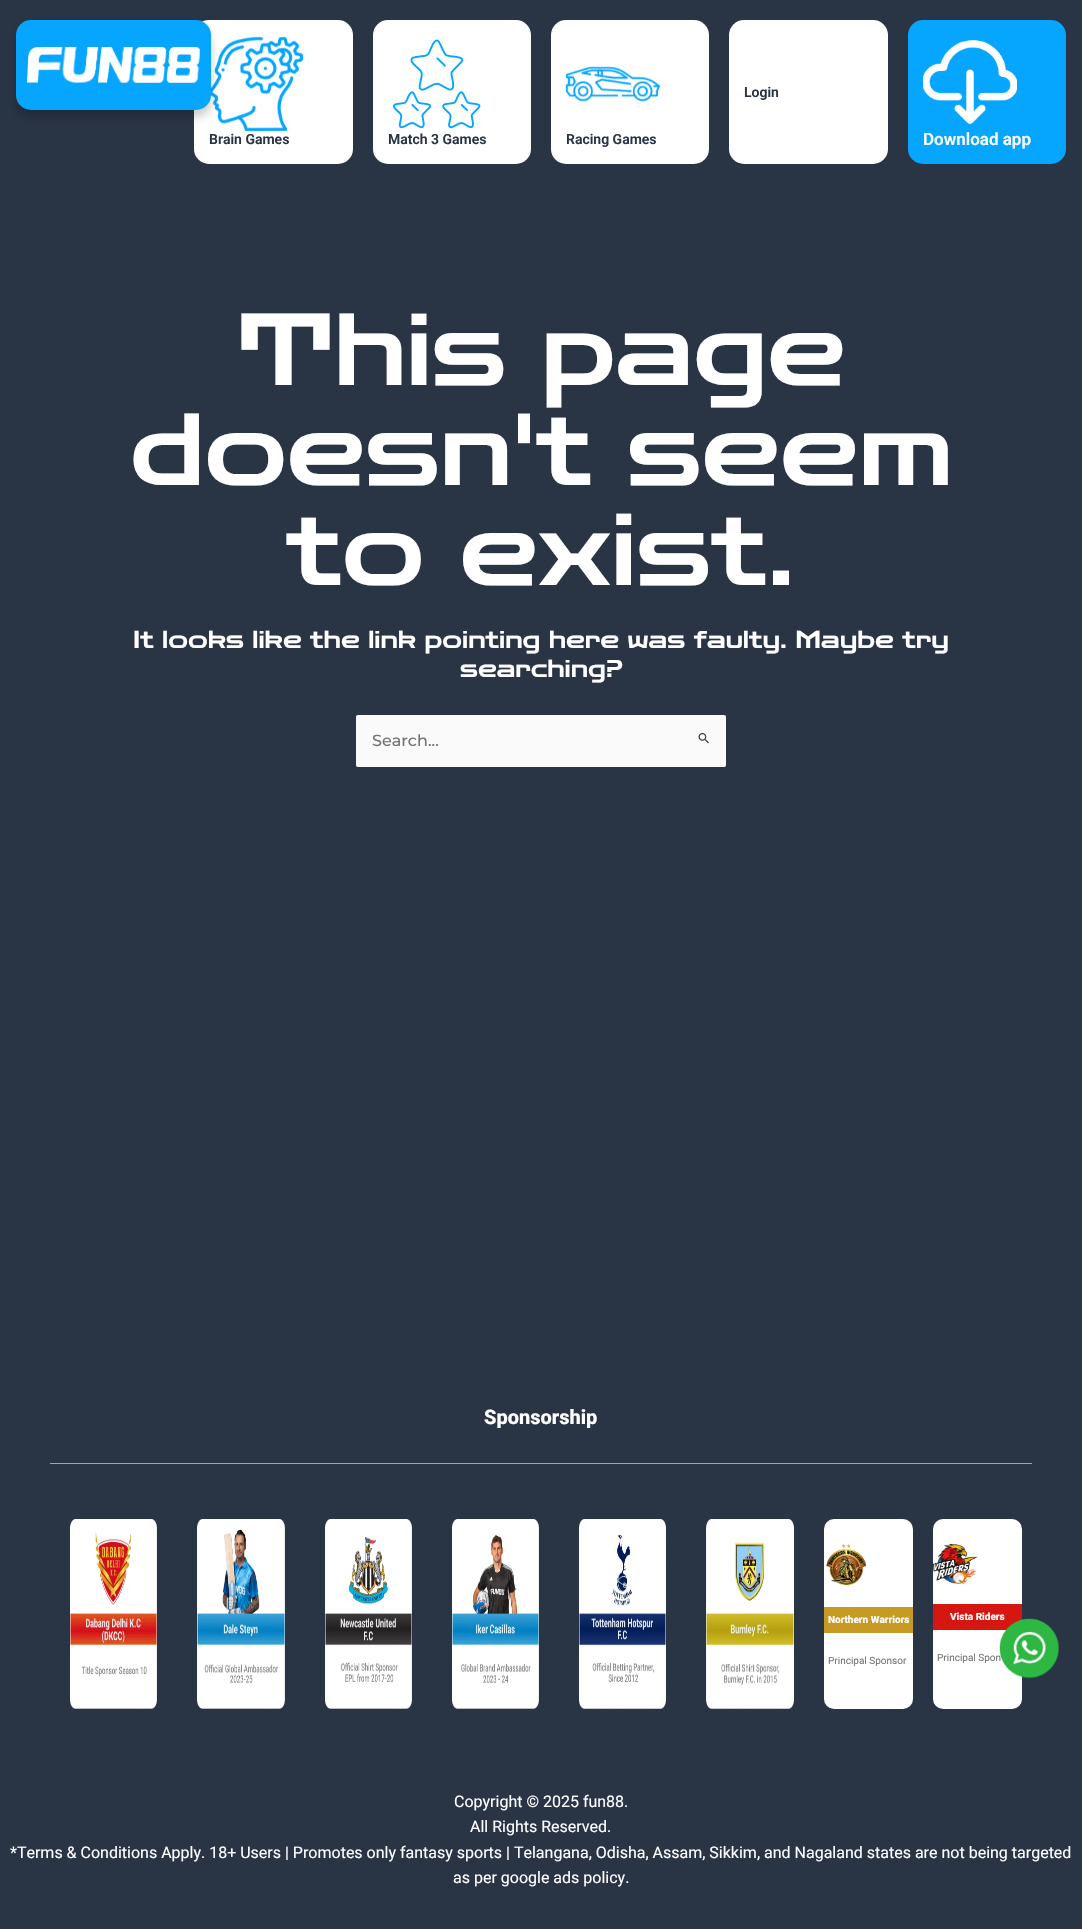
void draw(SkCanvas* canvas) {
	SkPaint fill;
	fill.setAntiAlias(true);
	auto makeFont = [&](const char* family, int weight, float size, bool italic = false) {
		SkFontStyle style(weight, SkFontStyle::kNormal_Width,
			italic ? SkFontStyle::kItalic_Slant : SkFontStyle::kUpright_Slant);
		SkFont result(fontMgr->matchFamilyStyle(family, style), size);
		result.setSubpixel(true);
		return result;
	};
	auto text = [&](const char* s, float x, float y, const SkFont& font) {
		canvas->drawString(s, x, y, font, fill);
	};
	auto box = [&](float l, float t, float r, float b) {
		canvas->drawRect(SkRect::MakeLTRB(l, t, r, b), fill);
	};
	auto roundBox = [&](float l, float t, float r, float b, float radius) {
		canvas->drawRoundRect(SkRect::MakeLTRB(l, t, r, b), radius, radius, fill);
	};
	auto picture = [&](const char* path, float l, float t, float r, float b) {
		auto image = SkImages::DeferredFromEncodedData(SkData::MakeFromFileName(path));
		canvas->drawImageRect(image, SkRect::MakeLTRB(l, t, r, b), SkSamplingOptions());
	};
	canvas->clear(0xFF293445);
	fill.setColor(0xFFFFFFFF);
	roundBox(194, 20, 353, 164, 15);
	picture("image1.png", 210, 36, 303, 131);
	fill.setColor(0x33000000);
	fill.setMaskFilter(SkMaskFilter::MakeBlur(kNormal_SkBlurStyle, 5));
	canvas->drawRoundRect(SkRect::MakeLTRB(16, 27, 211, 117), 15, 15, fill);
	fill.setMaskFilter(nullptr);
	fill.setColor(0xFF06A6FF);
	roundBox(16, 20, 211, 110, 15);
	picture("image0.png", 27, 47, 200, 83);
	fill.setColor(0xFFFFFFFF);
	roundBox(729, 20, 888, 164, 15);
	roundBox(373, 20, 531, 164, 15);
	picture("image2.png", 393, 39, 481, 129);
	roundBox(551, 20, 709, 164, 15);
	picture("image3.png", 566, 66, 660, 102);
	fill.setColor(0xFF06A6FF);
	roundBox(908, 20, 1066, 164, 15);
	picture("image4.png", 923, 40, 1017, 124);
	fill.setColor(0xFFFAFAFA);
	roundBox(356, 715, 726, 767, 2);
	fill.setStyle(SkPaint::kStroke_Style);
	fill.setStrokeWidth(1);
	fill.setColor(0x36FFFFFF);
	canvas->drawRoundRect(SkRect::MakeLTRB(356.5f, 715.5f, 725.5f, 766.5f), 1.5f, 1.5f, fill);
	picture("image5.png", 698, 733, 709, 744);
	fill.setStyle(SkPaint::kFill_Style);
	fill.setColor(0xFFA5A5A5);
	box(50, 1463, 1032, 1464);
	picture("image6.png", 70, 1519, 157, 1709);
	picture("image7.png", 197, 1519, 285, 1709);
	picture("image8.png", 325, 1519, 412, 1709);
	picture("image9.png", 452, 1519, 539, 1709);
	picture("image10.png", 579, 1519, 666, 1709);
	picture("image11.png", 706, 1519, 794, 1709);
	fill.setColor(0xFFFFFFFF);
	roundBox(824, 1519, 913, 1709, 10);
	picture("image12.png", 826, 1544, 867, 1586);
	fill.setColor(0xFFC79A23);
	box(824, 1607, 913, 1633);
	fill.setColor(0xFFFFFFFF);
	roundBox(933, 1519, 1022, 1709, 10);
	picture("image13.png", 933, 1544, 978, 1584);
	fill.setColor(0xFFD61611);
	box(933, 1604, 1022, 1630);
	auto font1 = makeFont("Roboto", 600, 14);
	fill.setColor(0xFF293445);
	text("Login", 744, 97, font1);
	text("Brain Games", 209, 144, font1);
	text("Match 3 Games", 388, 144, font1);
	text("Racing Games", 566, 144, font1);
	auto font2 = makeFont("Roboto", 600, 17);
	fill.setColor(0xFFFFFFFF);
	text("Download app", 923, 145, font2);
	auto font3 = makeFont("Zen Dots", 400, 100);
	text("This page", 237, 385, font3);
	text("doesn't seem", 130, 485, font3);
	text("to exist.", 286, 585, font3);
	auto font4 = makeFont("Zen Dots", 400, 24);
	text("It looks like the link pointing here was faulty. Maybe try", 133, 648, font4);
	text("searching?", 460, 677, font4);
	auto font5 = makeFont("Montserrat", 100, 16);
	fill.setColor(0xFF757575);
	text("Search...", 372, 746, font5);
	auto font6 = makeFont("Roboto", 800, 20);
	fill.setColor(0xFFFFFFFF);
	text("Sponsorship", 484, 1424, font6);
	auto font7 = makeFont("Roboto", 800, 10);
	text("Northern Warriors", 828, 1623, font7);
	auto font8 = makeFont("Roboto", 400, 10);
	fill.setColor(0xFF757575);
	text("Principal Sponsor", 828, 1664, font8);
	fill.setColor(0xFFFFFFFF);
	text("Vista Riders", 950, 1620, font7);
	fill.setColor(0xFF757575);
	text("Principal Spon", 937, 1661, font8);
	auto font9 = makeFont("Roboto", 400, 16);
	fill.setColor(0xFFFFFFFF);
	text("Copyright © 2025 fun88.", 454, 1807, font9);
	text("All Rights Reserved.", 470, 1832, font9);
	text("*Terms & Conditions Apply. 18+ Users | Promotes only fantasy sports | Telangana, Odisha, Assam, Sikkim, and Nagaland states are not being targeted", 10, 1858, font9);
	text("as per google ads policy.", 453, 1883, font9);
	picture("image14.png", 999, 1618, 1059, 1679);
}
